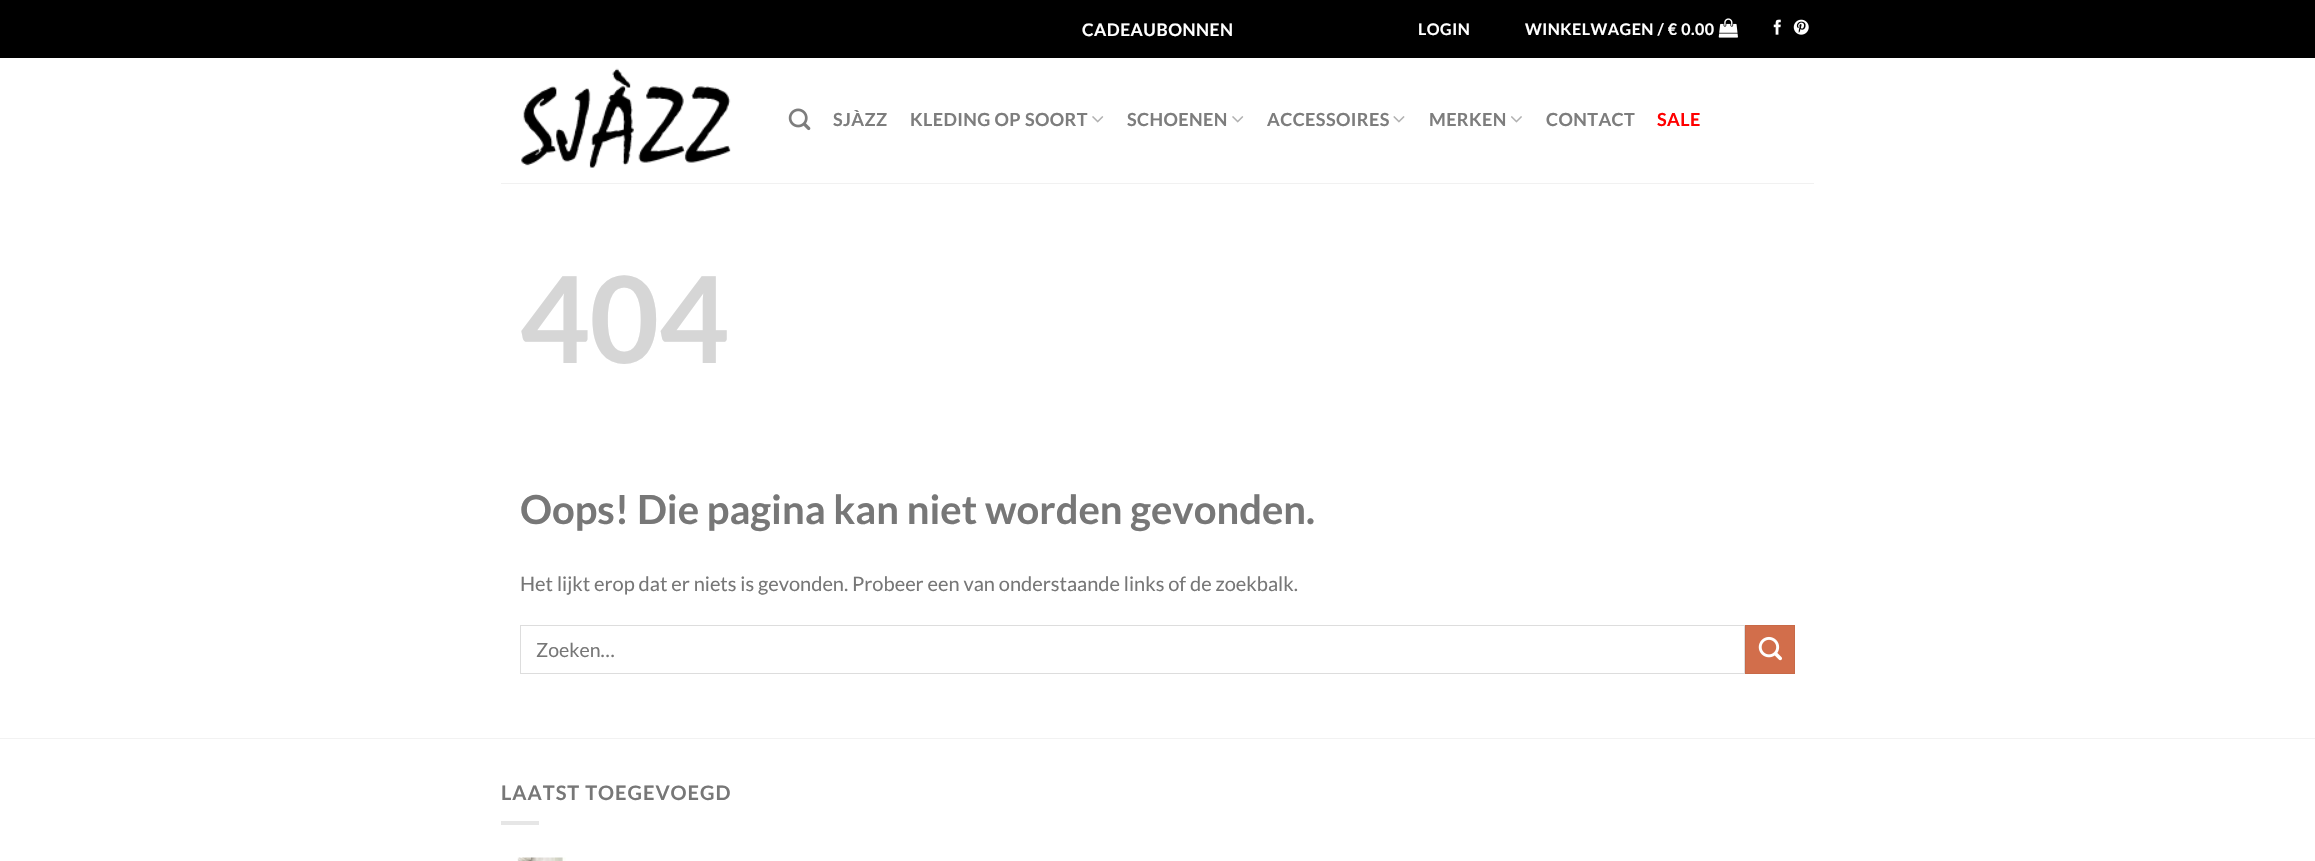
void draw(SkCanvas* canvas) {
	SkPaint fill;
	fill.setAntiAlias(true);
	auto makeFont = [&](const char* family, int weight, float size, bool italic = false) {
		SkFontStyle style(weight, SkFontStyle::kNormal_Width,
			italic ? SkFontStyle::kItalic_Slant : SkFontStyle::kUpright_Slant);
		SkFont result(fontMgr->matchFamilyStyle(family, style), size);
		result.setSubpixel(true);
		return result;
	};
	auto text = [&](const char* s, float x, float y, const SkFont& font) {
		canvas->drawString(s, x, y, font, fill);
	};
	auto spacedText = [&](const char* s, float x, float y, const SkFont& font, const SkPaint& ink, float letter, float word) {
		std::vector<SkGlyphID> glyphs(font.countText(s, strlen(s), SkTextEncoding::kUTF8));
		std::vector<float> xs(glyphs.size());
		font.textToGlyphs(s, strlen(s), SkTextEncoding::kUTF8, glyphs);
		font.getXPos(glyphs, xs, x);
		float extra = 0;
		for (size_t i = 0; i < glyphs.size(); i++) {
			xs[i] += extra;
			extra += letter + word * (glyphs[i] == font.unicharToGlyph(' '));
		}
		canvas->drawTextBlob(SkTextBlob::MakeFromPosHGlyphs(glyphs, xs, y, font), 0, 0, ink);
	};
	auto box = [&](float l, float t, float r, float b) {
		canvas->drawRect(SkRect::MakeLTRB(l, t, r, b), fill);
	};
	auto picture = [&](const char* path, float l, float t, float r, float b) {
		auto image = SkImages::DeferredFromEncodedData(SkData::MakeFromFileName(path));
		canvas->drawImageRect(image, SkRect::MakeLTRB(l, t, r, b), SkSamplingOptions());
	};
	canvas->clear(0xFFFFFFFF);
	fill.setColor(0xFF000000);
	box(0, 0, 2315, 58);
	picture("image0.png", 1718, 18, 1738, 38);
	picture("image1.png", 1773, 19, 1781, 35);
	picture("image2.png", 1793, 19, 1809, 35);
	picture("image3.png", 521, 68, 731, 168);
	picture("image4.png", 788, 108, 811, 131);
	picture("image5.png", 1092, 116, 1104, 123);
	picture("image5.png", 1232, 116, 1244, 123);
	picture("image6.png", 1393, 116, 1405, 123);
	picture("image7.png", 1511, 116, 1522, 123);
	fill.setColor(0xFFF1F1F1);
	box(501, 183, 1814, 184);
	fill.setStyle(SkPaint::kStroke_Style);
	fill.setStrokeWidth(1);
	fill.setColor(0xFFDDDDDD);
	canvas->drawRect(SkRect::MakeLTRB(520.5f, 625.5f, 1744.5f, 673.5f), fill);
	fill.setStyle(SkPaint::kFill_Style);
	fill.setColor(0xFFD26E4B);
	canvas->drawRect(SkRect::MakeLTRB(1745.5f, 625.5f, 1794.5f, 673.5f), fill);
	fill.setStyle(SkPaint::kStroke_Style);
	fill.setColor(0xFFC86947);
	canvas->drawRect(SkRect::MakeLTRB(1745.5f, 625.5f, 1794.5f, 673.5f), fill);
	picture("image8.png", 1758, 636, 1782, 661);
	fill.setStyle(SkPaint::kFill_Style);
	fill.setColor(0xFFF2F2F2);
	box(0, 738, 2315, 739);
	fill.setColor(0xFFE6E6E6);
	box(501, 821, 539, 825);
	picture("image9.png", 517, 857, 566, 861);
	auto font1 = makeFont("Lato", 700, 17.25f);
	fill.setColor(0xFFFFFFFF);
	spacedText("CADEAUBONNEN", 1082, 36, font1, fill, 0.5f, 0);
	auto font2 = makeFont("Lato", 700, 16);
	spacedText("LOGIN", 1418, 35, font2, fill, 0.5f, 0);
	spacedText("WINKELWAGEN / € 0.00", 1525, 35, font2, fill, 0.5f, 0);
	auto font3 = makeFont("Lato", 700, 18);
	fill.setColor(0xFF7D7D7D);
	spacedText("SJÀZZ", 833, 126, font3, fill, 0.4f, 0);
	spacedText("KLEDING OP SOORT", 910, 126, font3, fill, 0.4f, 0);
	spacedText("SCHOENEN", 1127, 126, font3, fill, 0.4f, 0);
	spacedText("ACCESSOIRES", 1267, 126, font3, fill, 0.4f, 0);
	spacedText("MERKEN", 1429, 126, font3, fill, 0.4f, 0);
	spacedText("CONTACT", 1546, 126, font3, fill, 0.4f, 0);
	fill.setColor(0xFFFF0000);
	spacedText("SALE", 1657, 126, font3, fill, 0.4f, 0);
	auto font4 = makeFont("Lato", 700, 120);
	fill.setColor(0xFFD6D6D6);
	text("404", 520, 363, font4);
	auto font5 = makeFont("Lato", 700, 40);
	fill.setColor(0xFF777777);
	text("Oops! Die pagina kan niet worden gevonden.", 520, 524, font5);
	auto font6 = makeFont("Lato", 400, 20);
	text("Het lijkt erop dat er niets is gevonden. Probeer een van onderstaande links of de zoekbalk.", 520, 591, font6);
	auto font7 = makeFont("Lato", 400, 19.5f);
	text("Zoeken…", 536, 657, font7);
	auto font8 = makeFont("Lato", 700, 20);
	spacedText("LAATST TOEGEVOEGD", 501, 800, font8, fill, 1, 0);
}
